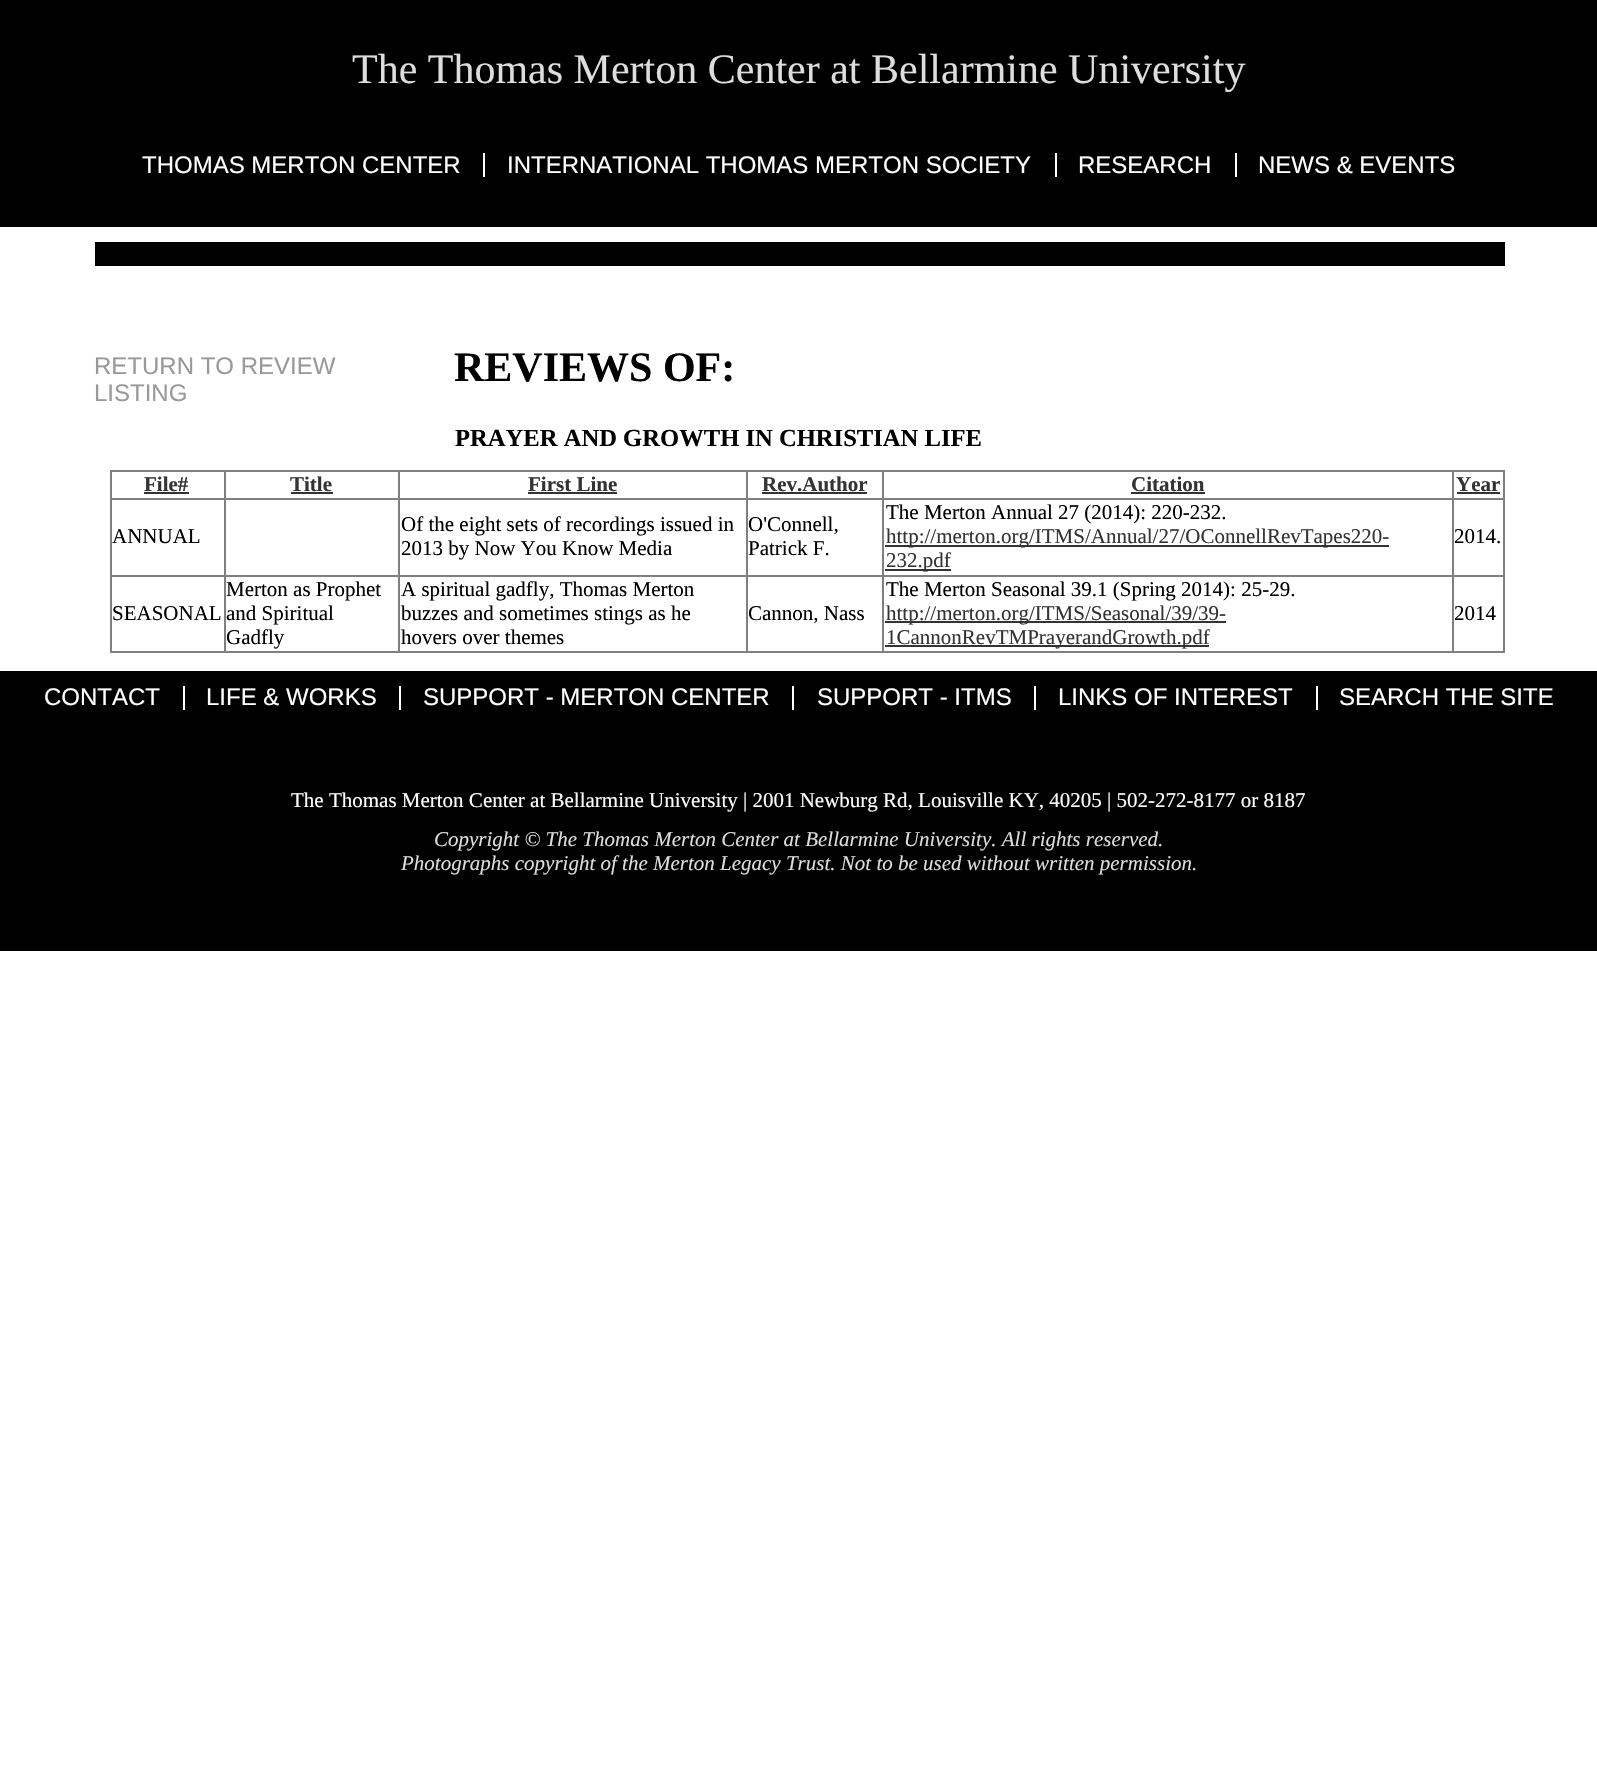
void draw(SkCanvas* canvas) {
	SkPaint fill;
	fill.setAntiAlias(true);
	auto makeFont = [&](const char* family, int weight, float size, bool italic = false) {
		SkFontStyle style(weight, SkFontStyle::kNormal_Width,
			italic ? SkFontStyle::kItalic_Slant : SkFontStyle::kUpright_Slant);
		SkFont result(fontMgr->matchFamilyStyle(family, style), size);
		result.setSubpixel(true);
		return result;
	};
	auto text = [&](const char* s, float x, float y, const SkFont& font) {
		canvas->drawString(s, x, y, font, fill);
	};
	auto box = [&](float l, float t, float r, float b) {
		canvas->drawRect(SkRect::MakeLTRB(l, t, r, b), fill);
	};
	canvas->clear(0xFFFFFFFF);
	fill.setColor(0xFF000000);
	box(0, 0, 1597, 227);
	fill.setColor(0xFFFFFFFF);
	box(483, 153, 485, 177);
	box(1055, 153, 1057, 177);
	box(1235, 153, 1237, 177);
	fill.setColor(0xFF000000);
	box(95, 242, 1505, 266);
	fill.setColor(0xFF808080);
	box(110, 470, 1505, 472);
	box(1503, 470, 1505, 653);
	box(110, 651, 1505, 653);
	box(110, 470, 112, 653);
	fill.setColor(0xFF333333);
	box(144, 492, 189, 494);
	fill.setColor(0xFF808080);
	box(1452, 498, 1505, 500);
	box(1452, 575, 1505, 577);
	box(1452, 575, 1454, 653);
	box(882, 575, 1454, 577);
	box(1452, 498, 1454, 576);
	box(882, 498, 1454, 500);
	box(882, 575, 884, 653);
	box(746, 575, 884, 577);
	box(882, 498, 884, 576);
	box(746, 498, 884, 500);
	box(746, 575, 748, 653);
	box(398, 575, 747, 577);
	box(746, 498, 748, 576);
	box(398, 498, 747, 500);
	box(398, 575, 400, 653);
	box(224, 575, 399, 577);
	box(398, 498, 400, 576);
	box(224, 498, 399, 500);
	box(224, 575, 226, 653);
	box(110, 575, 225, 577);
	box(224, 498, 226, 576);
	box(110, 498, 225, 500);
	box(224, 470, 226, 500);
	fill.setColor(0xFF333333);
	box(291, 492, 333, 494);
	fill.setColor(0xFF808080);
	box(398, 470, 400, 500);
	fill.setColor(0xFF333333);
	box(528, 492, 617, 494);
	fill.setColor(0xFF808080);
	box(746, 470, 748, 500);
	fill.setColor(0xFF333333);
	box(762, 492, 867, 494);
	fill.setColor(0xFF808080);
	box(882, 470, 884, 500);
	fill.setColor(0xFF333333);
	box(1131, 492, 1205, 494);
	fill.setColor(0xFF808080);
	box(1452, 470, 1454, 500);
	fill.setColor(0xFF333333);
	box(1457, 492, 1500, 494);
	box(885, 545, 1389, 547);
	box(885, 569, 951, 571);
	box(885, 621, 1226, 623);
	box(885, 645, 1209, 647);
	fill.setColor(0xFF000000);
	box(0, 671, 1597, 951);
	fill.setColor(0xFFFFFFFF);
	box(183, 686, 185, 710);
	box(399, 686, 401, 710);
	box(792, 686, 794, 710);
	box(1034, 686, 1036, 710);
	box(1316, 686, 1318, 710);
	auto font1 = makeFont("Liberation Serif", 400, 42);
	fill.setColor(0xFFDDDDDD);
	text("The Thomas Merton Center at Bellarmine University", 352, 83, font1);
	auto font2 = makeFont("Liberation Sans", 400, 24);
	fill.setColor(0xFFFFFFFF);
	text("THOMAS MERTON CENTER", 142, 173, font2);
	text("INTERNATIONAL THOMAS MERTON SOCIETY", 507, 173, font2);
	text("RESEARCH", 1078, 173, font2);
	text("NEWS & EVENTS", 1258, 173, font2);
	fill.setColor(0xFF999999);
	text("RETURN TO REVIEW", 94, 374, font2);
	text("LISTING", 94, 401, font2);
	auto font3 = makeFont("Liberation Serif", 700, 42);
	fill.setColor(0xFF000000);
	text("REVIEWS OF:", 454, 381, font3);
	auto font4 = makeFont("Liberation Serif", 700, 24.6f);
	text("PRAYER AND GROWTH IN CHRISTIAN LIFE", 455, 446, font4);
	auto font5 = makeFont("Liberation Serif", 700, 21);
	fill.setColor(0xFF333333);
	text("File#", 144, 491, font5);
	text("Title", 290, 491, font5);
	text("First Line", 528, 491, font5);
	text("Rev.Author", 762, 491, font5);
	text("Citation", 1131, 491, font5);
	text("Year", 1456, 491, font5);
	auto font6 = makeFont("Liberation Serif", 400, 21);
	fill.setColor(0xFF000000);
	text("ANNUAL", 112, 543, font6);
	text("Of the eight sets of recordings issued in", 401, 531, font6);
	text("2013 by Now You Know Media", 401, 555, font6);
	text("O'Connell,", 748, 531, font6);
	text("Patrick F.", 748, 555, font6);
	text("The Merton Annual 27 (2014): 220-232.", 886, 519, font6);
	fill.setColor(0xFF333333);
	text("http://merton.org/ITMS/Annual/27/OConnellRevTapes220-", 886, 543, font6);
	text("232.pdf", 886, 567, font6);
	fill.setColor(0xFF000000);
	text("2014.", 1454, 543, font6);
	text("SEASONAL", 112, 620, font6);
	text("Merton as Prophet", 226, 596, font6);
	text("and Spiritual", 226, 620, font6);
	text("Gadfly", 226, 644, font6);
	text("A spiritual gadfly, Thomas Merton", 401, 596, font6);
	text("buzzes and sometimes stings as he", 401, 620, font6);
	text("hovers over themes", 401, 644, font6);
	text("Cannon, Nass", 748, 620, font6);
	text("The Merton Seasonal 39.1 (Spring 2014): 25-29.", 886, 596, font6);
	fill.setColor(0xFF333333);
	text("http://merton.org/ITMS/Seasonal/39/39-", 886, 620, font6);
	text("1CannonRevTMPrayerandGrowth.pdf", 886, 644, font6);
	fill.setColor(0xFF000000);
	text("2014", 1454, 620, font6);
	fill.setColor(0xFFFFFFFF);
	text("CONTACT", 44, 705, font2);
	text("LIFE & WORKS", 206, 705, font2);
	text("SUPPORT - MERTON CENTER", 423, 705, font2);
	text("SUPPORT - ITMS", 817, 705, font2);
	text("LINKS OF INTEREST", 1058, 705, font2);
	text("SEARCH THE SITE", 1339, 705, font2);
	text("The Thomas Merton Center at Bellarmine University | 2001 Newburg Rd, Louisville KY, 40205 | 502-272-8177 or 8187", 291, 807, font6);
	auto font7 = makeFont("Liberation Serif", 400, 21, true);
	fill.setColor(0xFFDDDDDD);
	text("Copyright © The Thomas Merton Center at Bellarmine University. All rights reserved.", 434, 846, font7);
	text("Photographs copyright of the Merton Legacy Trust. Not to be used without written permission.", 401, 870, font7);
}
